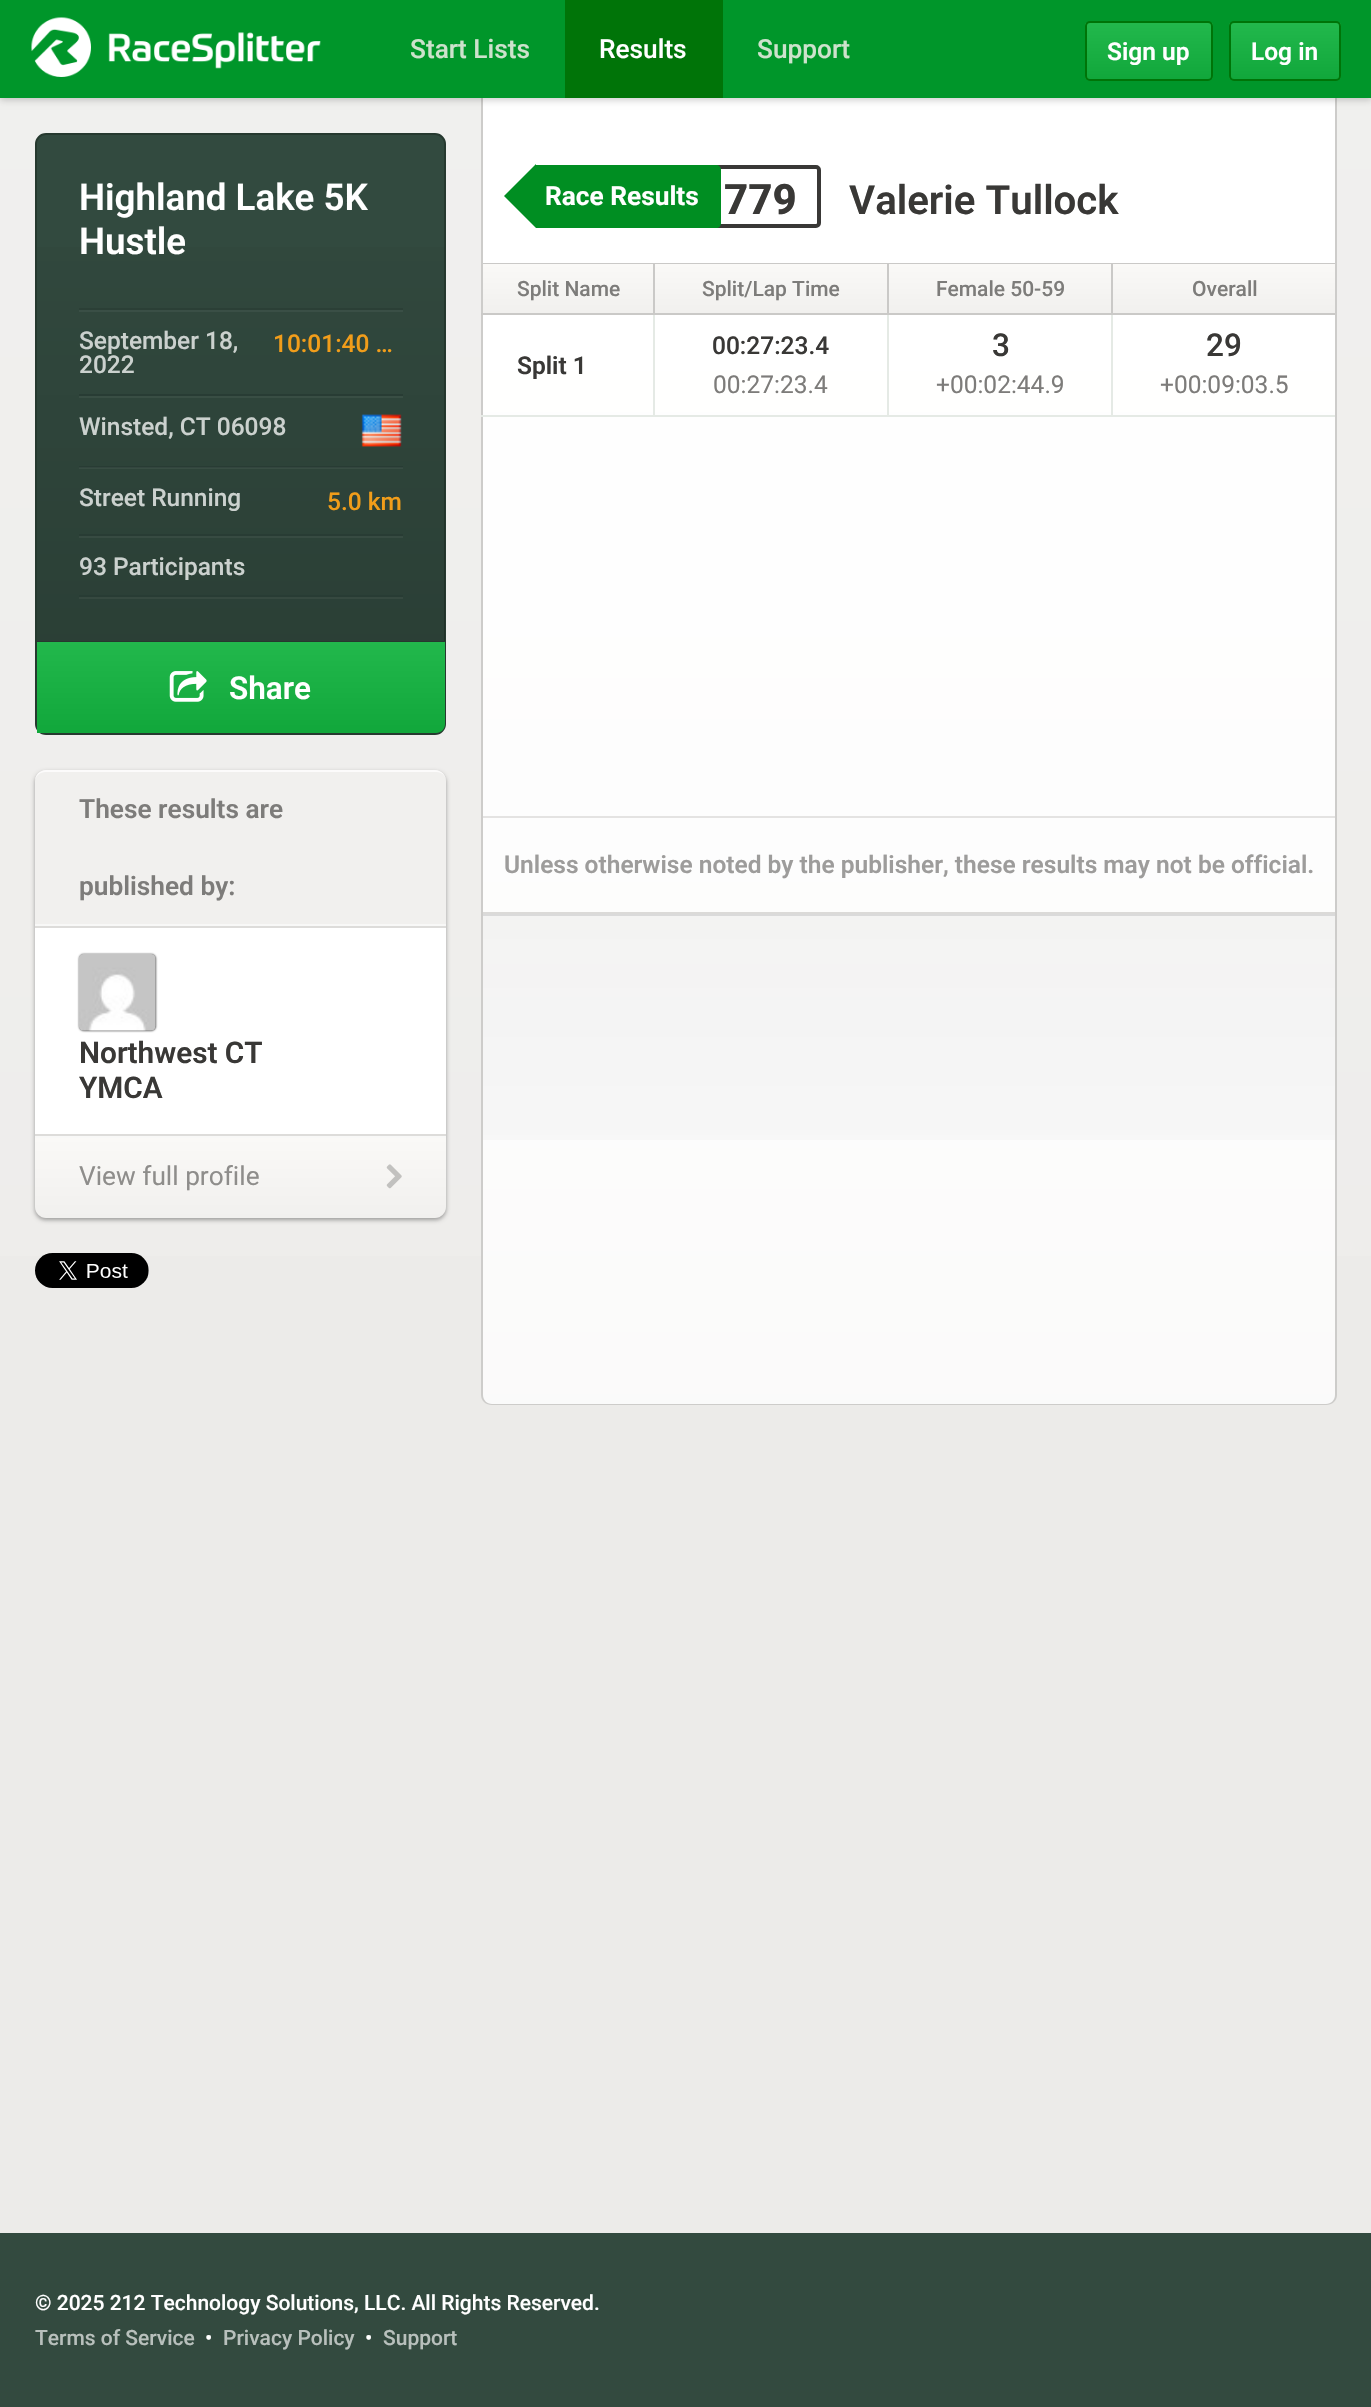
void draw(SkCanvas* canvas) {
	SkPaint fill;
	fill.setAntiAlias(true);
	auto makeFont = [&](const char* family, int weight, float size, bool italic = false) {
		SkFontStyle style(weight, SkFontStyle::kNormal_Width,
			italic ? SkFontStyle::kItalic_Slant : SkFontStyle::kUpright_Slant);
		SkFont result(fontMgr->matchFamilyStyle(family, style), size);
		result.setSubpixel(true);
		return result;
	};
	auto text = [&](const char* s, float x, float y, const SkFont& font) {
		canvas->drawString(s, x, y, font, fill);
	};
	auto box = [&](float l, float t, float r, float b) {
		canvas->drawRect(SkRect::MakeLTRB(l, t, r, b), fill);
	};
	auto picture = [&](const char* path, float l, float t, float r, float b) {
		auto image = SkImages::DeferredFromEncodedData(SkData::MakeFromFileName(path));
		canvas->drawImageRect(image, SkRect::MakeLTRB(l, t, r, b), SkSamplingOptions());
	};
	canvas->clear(0xFFECEBE9);
	{
		const SkColor colors[] = {0x40FFFFFF, 0x00FFFFFF};
		const float stops[] = {0, 1};
		const SkPoint ends[] = {{0, 0}, {0, 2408}};
		fill.setShader(SkGradientShader::MakeLinear(ends, colors, stops, 2, SkTileMode::kClamp));
		fill.setAlpha(255);
	}
	box(0, 98, 1371, 1256);
	canvas->save();
	canvas->clipPath(SkPathBuilder().moveTo(481, 95).lineTo(1337, 95).lineTo(1337, 1394).cubicTo(1337, 1400, 1332, 1405, 1326, 1405).lineTo(492, 1405).cubicTo(486, 1405, 481, 1400, 481, 1394).close().detach(), true);
	{
		const SkColor colors[] = {0xFFFFFFFF, 0xBFFFFFFF};
		const float stops[] = {0, 1};
		const SkPoint ends[] = {{483, 95}, {483, 1404}};
		fill.setShader(SkGradientShader::MakeLinear(ends, colors, stops, 2, SkTileMode::kClamp));
		fill.setAlpha(255);
	}
	box(481, 98, 1337, 1404);
	canvas->restore();
	fill.setShader(nullptr);
	fill.setColor(0xFFCDCCCA);
	canvas->drawPath(SkPathBuilder(SkPathFillType::kEvenOdd).moveTo(481, 94).lineTo(1337, 94).lineTo(1337, 1395).cubicTo(1337, 1401, 1332, 1405, 1326, 1405).lineTo(492, 1405).cubicTo(486, 1405, 481, 1401, 481, 1395).close().moveTo(483, 94).lineTo(1335, 94).lineTo(1335, 1395).cubicTo(1335, 1400, 1331, 1404, 1326, 1404).lineTo(492, 1404).cubicTo(487, 1404, 483, 1400, 483, 1395).close().detach(), fill);
	fill.setColor(0x33000000);
	fill.setMaskFilter(SkMaskFilter::MakeBlur(kNormal_SkBlurStyle, 3.5f));
	canvas->drawRect(SkRect::MakeLTRB(0, 2, 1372, 100), fill);
	fill.setMaskFilter(nullptr);
	fill.setColor(0xFF00962A);
	box(0, 0, 1371, 98);
	picture("image0.png", 31, 17, 321, 77);
	fill.setColor(0xFF007408);
	box(565, 0, 723, 98);
	canvas->save();
	canvas->clipPath(SkPathBuilder().moveTo(1090, 21).lineTo(1208, 21).cubicTo(1211, 21, 1213, 23, 1213, 26).lineTo(1213, 76).cubicTo(1213, 79, 1211, 81, 1208, 81).lineTo(1090, 81).cubicTo(1087, 81, 1085, 79, 1085, 76).lineTo(1085, 26).cubicTo(1085, 23, 1087, 21, 1090, 21).close().detach(), true);
	{
		const SkColor colors[] = {0xFF22B84C, 0xFF11A73B};
		const float stops[] = {0, 1};
		const SkPoint ends[] = {{1149, 23}, {1149, 79}};
		fill.setShader(SkGradientShader::MakeLinear(ends, colors, stops, 2, SkTileMode::kClamp));
		fill.setAlpha(255);
	}
	box(1085, 23, 1213, 79);
	canvas->restore();
	fill.setStyle(SkPaint::kStroke_Style);
	fill.setStrokeWidth(2);
	fill.setShader(nullptr);
	fill.setColor(0xFF007408);
	canvas->drawRoundRect(SkRect::MakeLTRB(1086, 22, 1212, 80), 4, 4, fill);
	canvas->save();
	canvas->clipPath(SkPathBuilder().moveTo(1234, 21).lineTo(1336, 21).cubicTo(1339, 21, 1341, 23, 1341, 26).lineTo(1341, 76).cubicTo(1341, 79, 1339, 81, 1336, 81).lineTo(1234, 81).cubicTo(1231, 81, 1229, 79, 1229, 76).lineTo(1229, 26).cubicTo(1229, 23, 1231, 21, 1234, 21).close().detach(), true);
	fill.setStyle(SkPaint::kFill_Style);
	{
		const SkColor colors[] = {0xFF22B84C, 0xFF11A73B};
		const float stops[] = {0, 1};
		const SkPoint ends[] = {{1285, 23}, {1285, 79}};
		fill.setShader(SkGradientShader::MakeLinear(ends, colors, stops, 2, SkTileMode::kClamp));
		fill.setAlpha(255);
	}
	box(1229, 23, 1341, 79);
	canvas->restore();
	fill.setStyle(SkPaint::kStroke_Style);
	fill.setShader(nullptr);
	fill.setColor(0xFF007408);
	canvas->drawRoundRect(SkRect::MakeLTRB(1230, 22, 1340, 80), 4, 4, fill);
	fill.setStyle(SkPaint::kFill_Style);
	fill.setColor(0xFF324A3F);
	canvas->drawRoundRect(SkRect::MakeLTRB(36, 134, 445, 734), 10, 10, fill);
	fill.setStyle(SkPaint::kStroke_Style);
	fill.setColor(0xFF26392F);
	canvas->drawRoundRect(SkRect::MakeLTRB(36, 134, 445, 734), 10, 10, fill);
	fill.setStyle(SkPaint::kFill_Style);
	{
		const SkColor colors[] = {0x00000000, 0x26000000};
		const float stops[] = {0, 1};
		const SkPoint ends[] = {{37, 135}, {37, 641}};
		fill.setShader(SkGradientShader::MakeLinear(ends, colors, stops, 2, SkTileMode::kClamp));
		fill.setAlpha(255);
	}
	box(37, 247, 445, 641);
	fill.setShader(nullptr);
	fill.setColor(0xFF2B3F36);
	box(79, 308, 403, 310);
	fill.setColor(0xFF364940);
	box(79, 597, 403, 599);
	fill.setColor(0xFF3A4F46);
	box(79, 310, 403, 312);
	fill.setColor(0xFF283C34);
	box(79, 394, 403, 396);
	fill.setColor(0xFF394E44);
	box(79, 396, 403, 398);
	fill.setColor(0xFF283C34);
	box(79, 466, 403, 468);
	picture("image1.png", 361, 414, 402, 447);
	fill.setColor(0x0DFFFFFF);
	box(79, 467, 403, 469);
	fill.setColor(0xFF283C34);
	box(79, 534, 403, 536);
	fill.setColor(0xFF374B42);
	box(79, 536, 403, 538);
	fill.setColor(0xFF283C34);
	box(79, 595, 403, 597);
	fill.setColor(0xFF26392F);
	box(35, 641, 446, 643);
	{
		const SkColor colors[] = {0xFF22B84C, 0xFF11A73B};
		const float stops[] = {0, 1};
		const SkPoint ends[] = {{241, 642}, {241, 733}};
		fill.setShader(SkGradientShader::MakeLinear(ends, colors, stops, 2, SkTileMode::kClamp));
		fill.setAlpha(255);
	}
	canvas->drawPath(SkPathBuilder().moveTo(37, 642).lineTo(445, 642).lineTo(445, 724).cubicTo(445, 729, 441, 733, 436, 733).lineTo(37, 733).close().detach(), fill);
	picture("image2.png", 169, 671, 207, 702);
	fill.setShader(nullptr);
	fill.setColor(0x59000000);
	fill.setMaskFilter(SkMaskFilter::MakeBlur(kNormal_SkBlurStyle, 2));
	canvas->drawRoundRect(SkRect::MakeLTRB(35, 772, 446, 1220), 11, 11, fill);
	fill.setMaskFilter(nullptr);
	fill.setColor(0xFFF1F0EE);
	canvas->drawPath(SkPathBuilder().moveTo(46, 770).lineTo(435, 770).cubicTo(441, 770, 446, 775, 446, 781).lineTo(446, 926).lineTo(35, 926).lineTo(35, 781).cubicTo(35, 775, 40, 770, 46, 770).close().detach(), fill);
	fill.setColor(0xFFFCFBFB);
	canvas->drawPath(SkPathBuilder().moveTo(46, 772).lineTo(436, 772).cubicTo(442, 772, 446, 776, 446, 782).lineTo(446, 781).cubicTo(446, 775, 441, 770, 435, 770).lineTo(46, 770).cubicTo(40, 770, 35, 775, 35, 781).lineTo(35, 782).cubicTo(35, 776, 40, 772, 46, 772).close().detach(), fill);
	fill.setColor(0xFFF8F8F7);
	box(35, 924, 446, 926);
	fill.setColor(0xFFFFFFFF);
	box(35, 928, 446, 1134);
	fill.setColor(0xFFDDDCDA);
	box(35, 926, 446, 928);
	box(35, 1134, 446, 1136);
	fill.setColor(0xBF000000);
	fill.setMaskFilter(SkMaskFilter::MakeBlur(kNormal_SkBlurStyle, 1));
	canvas->drawRoundRect(SkRect::MakeLTRB(79, 954, 156, 1031), 5, 5, fill);
	fill.setMaskFilter(nullptr);
	picture("image3.png", 79, 954, 156, 1031);
	{
		const SkColor colors[] = {0xFFFAF9F7, 0xFFF1F0EE};
		const float stops[] = {0, 1};
		const SkPoint ends[] = {{35, 1138}, {35, 1218}};
		fill.setShader(SkGradientShader::MakeLinear(ends, colors, stops, 2, SkTileMode::kClamp));
		fill.setAlpha(255);
	}
	canvas->drawPath(SkPathBuilder().moveTo(35, 1138).lineTo(446, 1138).lineTo(446, 1207).cubicTo(446, 1213, 441, 1218, 435, 1218).lineTo(46, 1218).cubicTo(40, 1218, 35, 1213, 35, 1207).close().detach(), fill);
	fill.setShader(nullptr);
	fill.setColor(0xFFF8F8F7);
	box(35, 1136, 446, 1138);
	picture("image4.png", 386, 1164, 402, 1189);
	picture("image5.png", 35, 1253, 149, 1288);
	fill.setStyle(SkPaint::kStroke_Style);
	fill.setStrokeWidth(4);
	fill.setColor(0xFF393836);
	canvas->drawRoundRect(SkRect::MakeLTRB(702, 167, 819, 226), 3, 3, fill);
	fill.setStyle(SkPaint::kFill_Style);
	fill.setColor(0xFF008E22);
	canvas->drawPath(SkPathBuilder().moveTo(536, 165).lineTo(716, 165).cubicTo(719, 165, 721, 167, 721, 170).lineTo(721, 223).cubicTo(721, 226, 719, 228, 716, 228).lineTo(536, 228).close().detach(), fill);
	canvas->drawPath(SkPathBuilder().moveTo(536, 164).lineTo(536, 228).lineTo(504, 196).close().detach(), fill);
	fill.setColor(0xFFCAC9C7);
	box(483, 263, 1335, 264);
	{
		const SkColor colors[] = {0xFFFAF9F7, 0xFFF1F0EE};
		const float stops[] = {0, 1};
		const SkPoint ends[] = {{483, 264}, {483, 313}};
		fill.setShader(SkGradientShader::MakeLinear(ends, colors, stops, 2, SkTileMode::kClamp));
		fill.setAlpha(255);
	}
	box(483, 264, 653, 313);
	fill.setShader(nullptr);
	fill.setColor(0xFFE5EAE5);
	box(481, 415, 1335, 417);
	box(1111, 313, 1113, 417);
	fill.setColor(0xFFCAC9C7);
	box(1111, 313, 1335, 315);
	box(1111, 264, 1113, 315);
	fill.setColor(0xFFE5EAE5);
	box(887, 313, 889, 417);
	fill.setColor(0xFFCAC9C7);
	box(887, 313, 1113, 315);
	box(887, 264, 889, 315);
	fill.setColor(0xFFE5EAE5);
	box(653, 313, 655, 417);
	fill.setColor(0xFFCAC9C7);
	box(653, 313, 889, 315);
	box(653, 264, 655, 315);
	box(481, 313, 655, 315);
	{
		const SkColor colors[] = {0xFFFAF9F7, 0xFFF1F0EE};
		const float stops[] = {0, 1};
		const SkPoint ends[] = {{653, 264}, {653, 313}};
		fill.setShader(SkGradientShader::MakeLinear(ends, colors, stops, 2, SkTileMode::kClamp));
		fill.setAlpha(255);
	}
	box(655, 264, 887, 313);
	{
		const SkColor colors[] = {0xFFFAF9F7, 0xFFF1F0EE};
		const float stops[] = {0, 1};
		const SkPoint ends[] = {{889, 264}, {889, 313}};
		fill.setShader(SkGradientShader::MakeLinear(ends, colors, stops, 2, SkTileMode::kClamp));
		fill.setAlpha(255);
	}
	box(889, 264, 1111, 313);
	{
		const SkColor colors[] = {0xFFFAF9F7, 0xFFF1F0EE};
		const float stops[] = {0, 1};
		const SkPoint ends[] = {{1113, 264}, {1113, 313}};
		fill.setShader(SkGradientShader::MakeLinear(ends, colors, stops, 2, SkTileMode::kClamp));
		fill.setAlpha(255);
	}
	box(1113, 264, 1335, 313);
	fill.setShader(nullptr);
	fill.setColor(0xFFE4E3E2);
	box(483, 816, 1335, 818);
	{
		const SkColor colors[] = {0x0A000000, 0x00000000};
		const float stops[] = {0, 1};
		const SkPoint ends[] = {{483, 914}, {483, 1404}};
		fill.setShader(SkGradientShader::MakeLinear(ends, colors, stops, 2, SkTileMode::kClamp));
		fill.setAlpha(255);
	}
	box(483, 916, 1335, 1140);
	fill.setShader(nullptr);
	fill.setColor(0xFFDADADA);
	box(483, 914, 1335, 916);
	fill.setColor(0xFFDBDAD8);
	box(483, 912, 1335, 914);
	fill.setColor(0xFF334A3F);
	box(0, 2233, 1371, 2407);
	auto font1 = makeFont("Roboto", 500, 26.25f);
	fill.setColor(0xFFCDE2CC);
	text("Start Lists", 410, 58, font1);
	fill.setColor(0xFFFFFFFF);
	text("Results", 599, 58, font1);
	fill.setColor(0xFFCDE2CC);
	text("Support", 757, 58, font1);
	auto font2 = makeFont("Roboto", 600, 24.5f);
	fill.setColor(0xFFFFFFFF);
	text("Sign up", 1107, 60, font2);
	text("Log in", 1251, 60, font2);
	auto font3 = makeFont("Roboto", 600, 36.75f);
	text("Highland Lake 5K", 79, 210, font3);
	text("Hustle", 79, 254, font3);
	auto font4 = makeFont("Roboto", 500, 24.5f);
	fill.setColor(0xFFCBD1CE);
	text("September 18,", 79, 349, font4);
	text("2022", 79, 373, font4);
	fill.setColor(0xFFF19D1A);
	text("10:01:40 …", 273, 352, font4);
	fill.setColor(0xFFCBD1CE);
	text("Winsted, CT 06098", 79, 435, font4);
	text("Street Running", 79, 506, font4);
	fill.setColor(0xFFF19D1A);
	text("5.0 km", 327, 510, font4);
	fill.setColor(0xFFCBD1CE);
	text("93 Participants", 79, 575, font4);
	auto font5 = makeFont("Roboto", 600, 31.5f);
	fill.setColor(0xFFFFFFFF);
	text("Share", 229, 699, font5);
	auto font6 = makeFont("Roboto", 600, 26.25f);
	fill.setColor(0xFF7D7C7A);
	text("These results are", 79, 818, font6);
	text("published by:", 79, 895, font6);
	auto font7 = makeFont("Roboto", 600, 29.75f);
	fill.setColor(0xFF393836);
	text("Northwest CT", 79, 1063, font7);
	text("YMCA", 79, 1098, font7);
	auto font8 = makeFont("Roboto", 400, 26.25f);
	fill.setColor(0xFF8E8D8B);
	text("View full profile", 79, 1185, font8);
	auto font9 = makeFont("Roboto", 700, 26.25f);
	fill.setColor(0xFFFFFFFF);
	text("Race Results", 545, 205, font9);
	auto font10 = makeFont("Roboto", 800, 42);
	fill.setColor(0xFF393836);
	text("779", 724, 214, font10);
	auto font11 = makeFont("Roboto", 600, 40.25f);
	text("Valerie Tullock", 849, 214, font11);
	auto font12 = makeFont("Roboto", 500, 21);
	fill.setColor(0xFF7D7C7A);
	text("Split Name", 517, 296, font12);
	text("Split/Lap Time", 702, 296, font12);
	text("Female 50-59", 936, 296, font12);
	text("Overall", 1192, 296, font12);
	fill.setColor(0xFF393836);
	text("Split 1", 517, 374, font2);
	text("00:27:23.4", 712, 354, font4);
	auto font13 = makeFont("Roboto", 400, 24.5f);
	fill.setColor(0xFF7D7C7A);
	text("00:27:23.4", 713, 393, font13);
	auto font14 = makeFont("Roboto", 500, 31.5f);
	fill.setColor(0xFF393836);
	text("3", 992, 356, font14);
	fill.setColor(0xFF7D7C7A);
	text("+00:02:44.9", 936, 393, font13);
	fill.setColor(0xFF393836);
	text("29", 1206, 356, font14);
	fill.setColor(0xFF7D7C7A);
	text("+00:09:03.5", 1160, 393, font13);
	fill.setColor(0xFF9D9C9B);
	text("Unless otherwise noted by the publisher, these results may not be official.", 504, 873, font2);
	fill.setColor(0xFFFFFFFF);
	text("© 2025 212 Technology Solutions, LLC. All Rights Reserved.", 35, 2310, font12);
	fill.setColor(0xFFB8C0BC);
	text("Terms of Service", 35, 2345, font12);
	fill.setColor(0xFFFFFFFF);
	text("•", 205, 2345, font12);
	fill.setColor(0xFFB8C0BC);
	text("Privacy Policy", 223, 2345, font12);
	fill.setColor(0xFFFFFFFF);
	text("•", 365, 2345, font12);
	fill.setColor(0xFFB8C0BC);
	text("Support", 383, 2345, font12);
}
